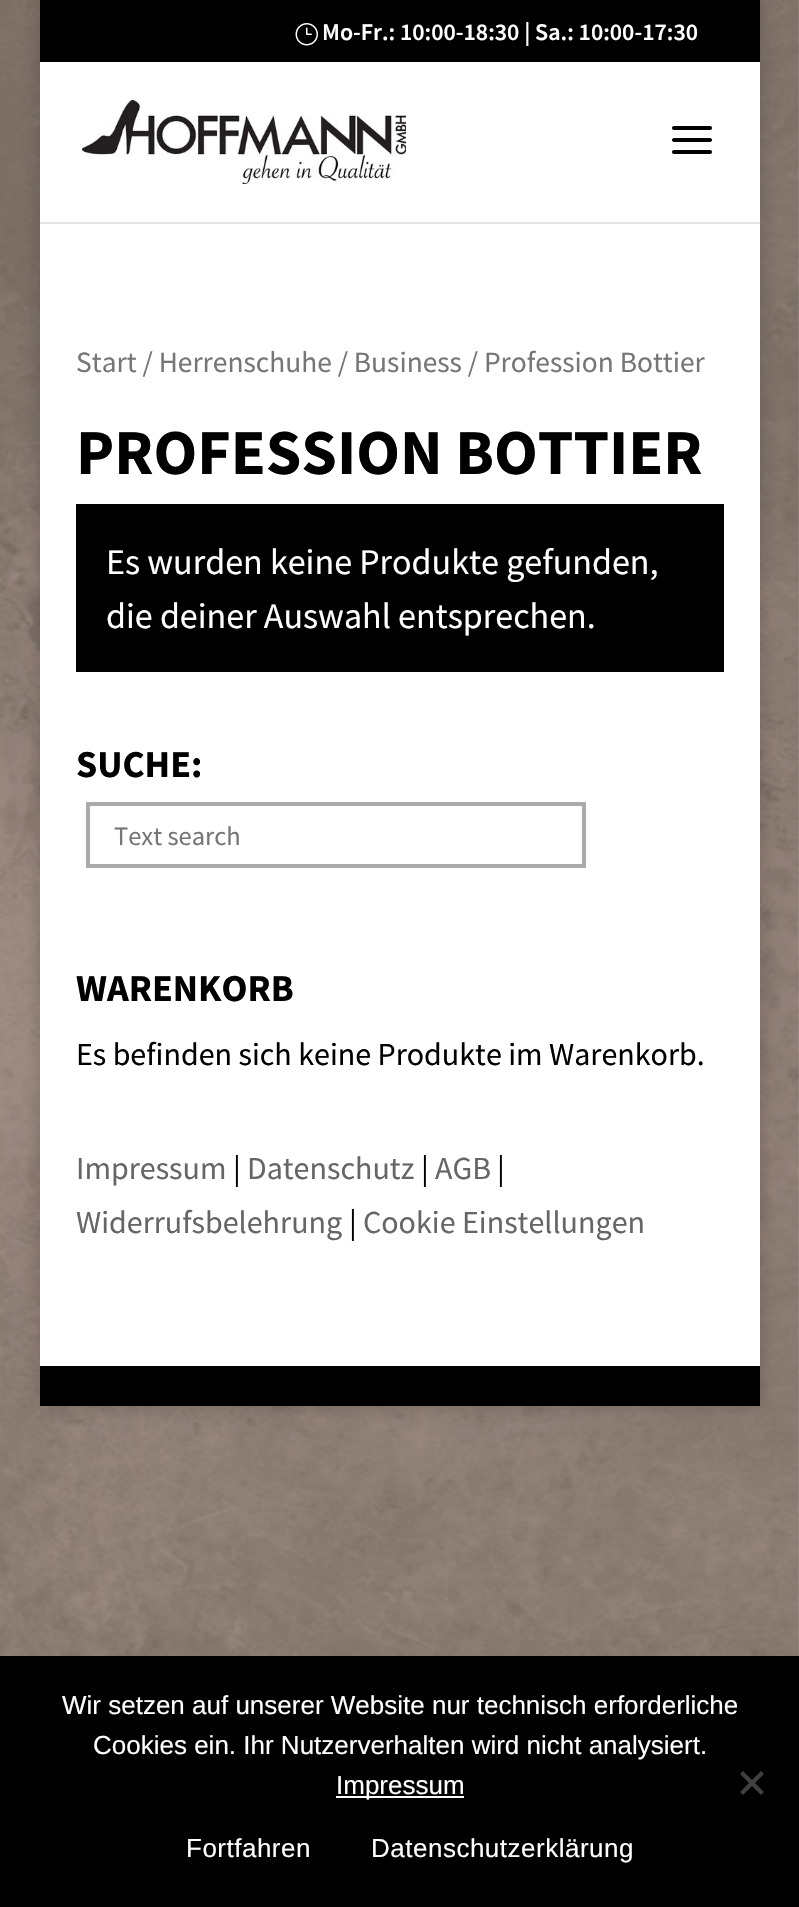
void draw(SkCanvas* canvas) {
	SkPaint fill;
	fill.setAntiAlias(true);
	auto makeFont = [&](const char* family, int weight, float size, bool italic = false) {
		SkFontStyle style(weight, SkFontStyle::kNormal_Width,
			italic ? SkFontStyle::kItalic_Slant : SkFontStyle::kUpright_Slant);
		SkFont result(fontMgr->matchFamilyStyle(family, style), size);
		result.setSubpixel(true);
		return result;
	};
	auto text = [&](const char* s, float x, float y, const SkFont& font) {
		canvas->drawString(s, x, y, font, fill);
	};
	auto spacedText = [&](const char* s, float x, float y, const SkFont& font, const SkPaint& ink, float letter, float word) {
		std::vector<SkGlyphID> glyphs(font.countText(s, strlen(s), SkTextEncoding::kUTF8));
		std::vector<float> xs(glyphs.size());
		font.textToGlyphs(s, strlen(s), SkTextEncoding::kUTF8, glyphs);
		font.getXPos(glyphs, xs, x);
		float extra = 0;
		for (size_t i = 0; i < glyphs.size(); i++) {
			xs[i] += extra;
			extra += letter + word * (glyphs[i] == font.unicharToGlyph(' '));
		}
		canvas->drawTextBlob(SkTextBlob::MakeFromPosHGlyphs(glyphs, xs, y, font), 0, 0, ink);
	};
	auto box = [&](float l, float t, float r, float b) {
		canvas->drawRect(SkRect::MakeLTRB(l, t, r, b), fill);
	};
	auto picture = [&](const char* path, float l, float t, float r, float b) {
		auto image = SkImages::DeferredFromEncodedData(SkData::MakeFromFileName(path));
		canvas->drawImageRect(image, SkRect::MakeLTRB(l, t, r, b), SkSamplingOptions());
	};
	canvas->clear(0xFFFFFFFF);
	picture("image0.png", 0, 0, 799, 1656);
	fill.setColor(0x33000000);
	fill.setMaskFilter(SkMaskFilter::MakeBlur(kNormal_SkBlurStyle, 10));
	canvas->drawRect(SkRect::MakeLTRB(40, 0, 760, 1406), fill);
	fill.setMaskFilter(nullptr);
	fill.setColor(0xFF000000);
	box(40, 0, 760, 62);
	picture("image1.png", 295, 23, 318, 46);
	fill.setColor(0xFFE6E6E6);
	box(40, 222, 760, 224);
	fill.setColor(0xFFFFFFFF);
	box(40, 62, 760, 222);
	picture("image2.png", 82, 100, 406, 184);
	picture("image3.png", 672, 126, 712, 154);
	box(40, 224, 760, 1366);
	fill.setColor(0xFF000000);
	box(76, 504, 724, 672);
	fill.setStyle(SkPaint::kStroke_Style);
	fill.setStrokeWidth(4);
	fill.setColor(0xFFAAAAAA);
	canvas->drawRect(SkRect::MakeLTRB(88, 804, 584, 866), fill);
	fill.setStyle(SkPaint::kFill_Style);
	fill.setColor(0xFF000000);
	box(40, 1366, 760, 1406);
	box(0, 1656, 799, 1907);
	fill.setColor(0xFFFFFFFF);
	box(336, 1796, 464, 1798);
	fill.setColor(0xFF404040);
	canvas->drawPath(SkPathBuilder().moveTo(761, 1771).lineTo(764, 1774).lineTo(743, 1795).lineTo(740, 1792).close().detach(), fill);
	canvas->drawPath(SkPathBuilder().moveTo(740, 1774).lineTo(743, 1771).lineTo(764, 1792).lineTo(761, 1795).close().detach(), fill);
	auto font1 = makeFont("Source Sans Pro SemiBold", 600, 24);
	fill.setColor(0xFFFFFFFF);
	text("Mo-Fr.: 10:00-18:30 | Sa.: 10:00-17:30", 322, 40, font1);
	auto font2 = makeFont("Source Sans Pro", 400, 29.4f);
	fill.setColor(0xFF767676);
	text("Start / Herrenschuhe / Business / Profession Bottier", 76, 372, font2);
	auto font3 = makeFont("Source Sans Pro", 700, 64);
	fill.setColor(0xFF000000);
	text("PROFESSION BOTTIER", 76, 474, font3);
	auto font4 = makeFont("Source Sans Pro", 400, 36);
	fill.setColor(0xFFFFFFFF);
	text("Es wurden keine Produkte gefunden,", 106, 574, font4);
	text("die deiner Auswahl entsprechen.", 106, 628, font4);
	auto font5 = makeFont("Source Sans Pro", 700, 38);
	fill.setColor(0xFF000000);
	text("SUCHE:", 76, 777, font5);
	auto font6 = makeFont("Source Sans Pro", 400, 26.5f);
	fill.setColor(0xFF767676);
	text("Text search", 114, 845, font6);
	fill.setColor(0xFF000000);
	text("WARENKORB", 76, 1001, font5);
	auto font7 = makeFont("Source Sans Pro", 400, 32);
	text("Es befinden sich keine Produkte im Warenkorb.", 76, 1065, font7);
	fill.setColor(0xFF666666);
	text("Impressum", 76, 1179, font7);
	fill.setColor(0xFF000000);
	text("|", 233, 1179, font7);
	fill.setColor(0xFF666666);
	text("Datenschutz", 247, 1179, font7);
	fill.setColor(0xFF000000);
	text("|", 421, 1179, font7);
	fill.setColor(0xFF666666);
	text("AGB", 435, 1179, font7);
	fill.setColor(0xFF000000);
	text("|", 497, 1179, font7);
	fill.setColor(0xFF666666);
	text("Widerrufsbelehrung", 76, 1233, font7);
	fill.setColor(0xFF000000);
	text("|", 349, 1233, font7);
	fill.setColor(0xFF666666);
	text("Cookie Einstellungen", 363, 1233, font7);
	auto font8 = makeFont("Liberation Sans", 400, 26);
	fill.setColor(0xFFFFFFFF);
	text("Wir setzen auf unserer Website nur technisch erforderliche", 62, 1714, font8);
	text("Cookies ein. Ihr Nutzerverhalten wird nicht analysiert.", 93, 1754, font8);
	text("Impressum", 336, 1794, font8);
	spacedText("Fortfahren", 186, 1857, font8, fill, 0.5f, 0);
	spacedText("Datenschutzerklärung", 371, 1857, font8, fill, 0.5f, 0);
}
